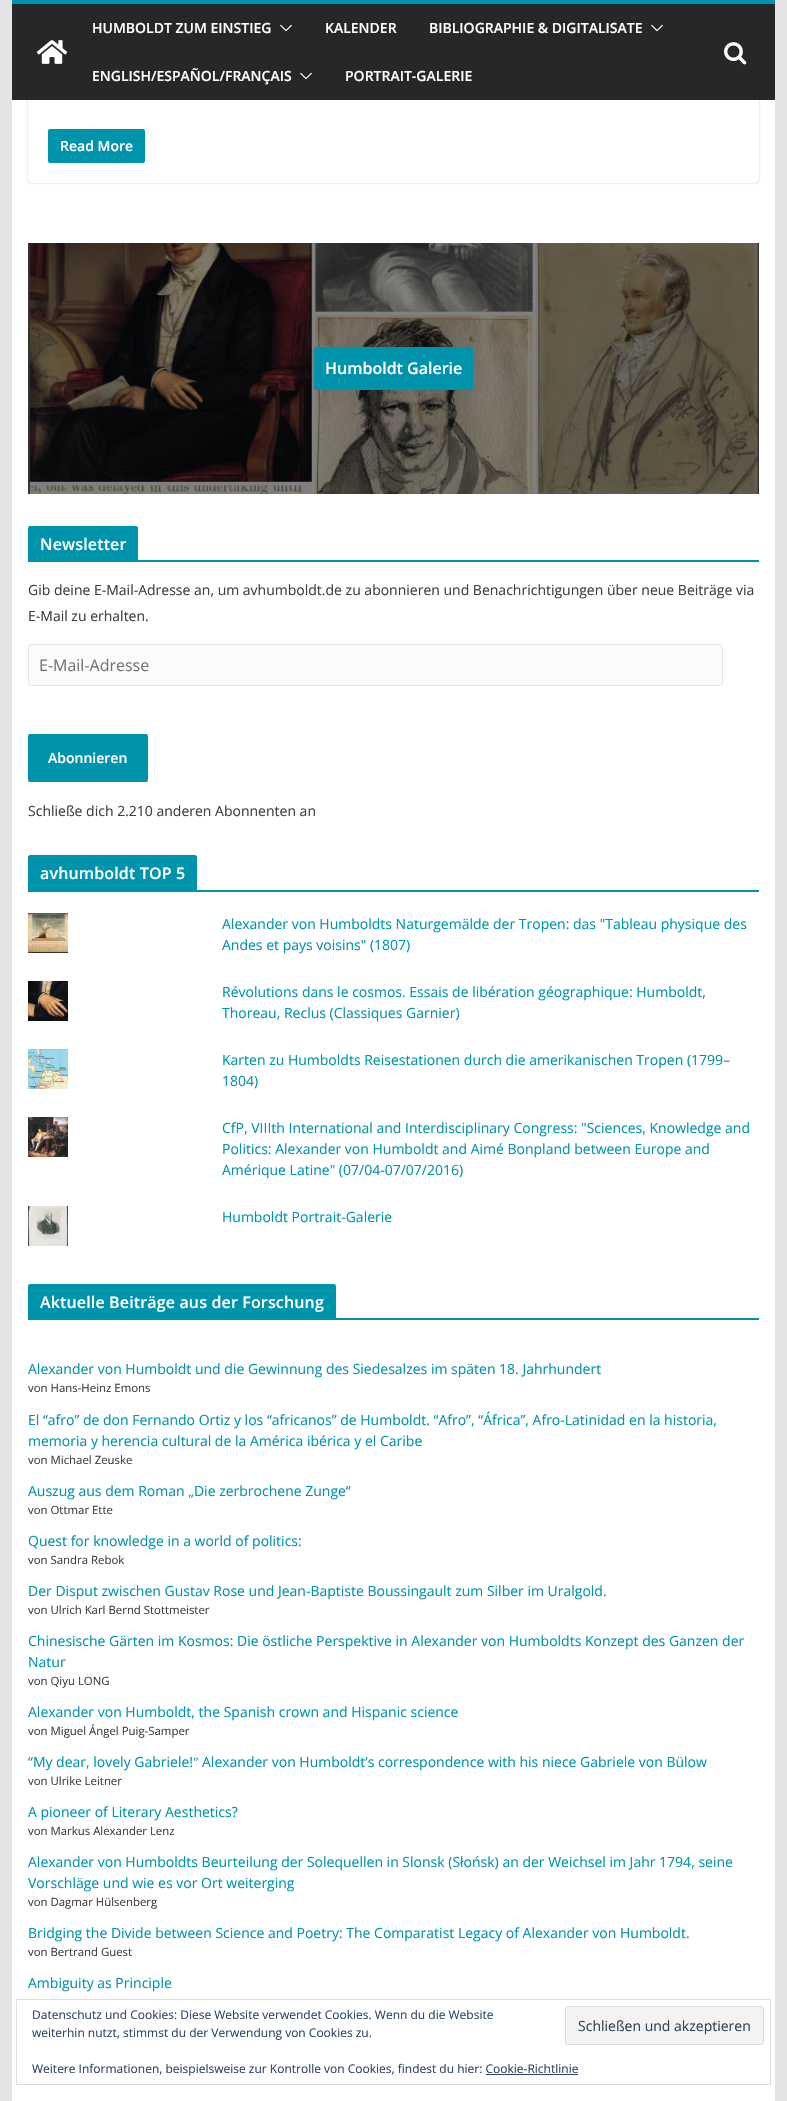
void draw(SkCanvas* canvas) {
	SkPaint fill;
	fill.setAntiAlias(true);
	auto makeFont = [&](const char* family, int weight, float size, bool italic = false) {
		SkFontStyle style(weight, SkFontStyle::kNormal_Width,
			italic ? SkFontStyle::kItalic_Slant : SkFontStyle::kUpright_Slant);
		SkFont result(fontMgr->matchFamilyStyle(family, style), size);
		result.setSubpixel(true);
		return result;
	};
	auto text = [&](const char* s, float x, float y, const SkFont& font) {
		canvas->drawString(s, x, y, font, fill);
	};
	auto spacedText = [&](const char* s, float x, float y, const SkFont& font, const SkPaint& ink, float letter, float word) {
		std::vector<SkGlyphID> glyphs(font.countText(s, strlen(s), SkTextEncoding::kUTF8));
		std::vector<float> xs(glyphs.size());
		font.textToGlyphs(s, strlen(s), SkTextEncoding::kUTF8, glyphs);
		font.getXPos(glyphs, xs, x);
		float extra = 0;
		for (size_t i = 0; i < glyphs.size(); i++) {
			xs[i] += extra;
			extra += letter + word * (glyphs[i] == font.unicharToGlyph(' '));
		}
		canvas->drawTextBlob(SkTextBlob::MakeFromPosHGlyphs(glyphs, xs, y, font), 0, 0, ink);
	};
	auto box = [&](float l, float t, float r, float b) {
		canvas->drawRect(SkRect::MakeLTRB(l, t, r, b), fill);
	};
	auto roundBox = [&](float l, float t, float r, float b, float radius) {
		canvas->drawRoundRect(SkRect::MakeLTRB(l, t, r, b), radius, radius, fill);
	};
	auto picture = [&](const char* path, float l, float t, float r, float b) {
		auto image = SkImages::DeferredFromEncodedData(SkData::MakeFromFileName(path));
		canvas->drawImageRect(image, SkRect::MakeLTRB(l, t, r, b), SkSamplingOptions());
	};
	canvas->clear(0xFFE4E4E7);
	fill.setColor(0xFFFFFFFF);
	box(12, 100, 775, 2101);
	canvas->save();
	canvas->clipPath(SkPathBuilder(SkPathFillType::kEvenOdd).moveTo(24, 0).lineTo(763, 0).lineTo(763, 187).lineTo(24, 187).close().moveTo(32, -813).lineTo(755, -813).cubicTo(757, -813, 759, -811, 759, -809).lineTo(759, 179).cubicTo(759, 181, 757, 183, 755, 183).lineTo(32, 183).cubicTo(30, 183, 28, 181, 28, 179).lineTo(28, -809).cubicTo(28, -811, 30, -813, 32, -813).close().detach(), true);
	fill.setColor(0x3D000000);
	fill.setMaskFilter(SkMaskFilter::MakeBlur(kNormal_SkBlurStyle, 1));
	canvas->drawRoundRect(SkRect::MakeLTRB(28, -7, 759, 183), 4, 4, fill);
	fill.setMaskFilter(nullptr);
	canvas->restore();
	fill.setColor(0xFF27272A);
	box(12, 4, 775, 100);
	fill.setColor(0xFF0094AC);
	box(12, 0, 775, 4);
	picture("image0.png", 36, 40, 68, 64);
	picture("image1.png", 280, 24, 292, 32);
	picture("image1.png", 651, 24, 663, 32);
	picture("image1.png", 300, 72, 312, 80);
	picture("image2.png", 724, 42, 747, 65);
	fill.setColor(0xFF808080);
	box(28, 243, 759, 494);
	fill.setColor(0xFF0094AC);
	roundBox(48, 129, 145, 163, 2);
	picture("image3.png", 28, 243, 759, 494);
	canvas->drawRoundRect(SkRect::MakeLTRB(314.5f, 347.5f, 472.5f, 389.5f), 1.5f, 1.5f, fill);
	fill.setStyle(SkPaint::kStroke_Style);
	fill.setStrokeWidth(1);
	canvas->drawRoundRect(SkRect::MakeLTRB(314.5f, 347.5f, 472.5f, 389.5f), 1.5f, 1.5f, fill);
	fill.setStyle(SkPaint::kFill_Style);
	box(28, 560, 759, 562);
	canvas->drawPath(SkPathBuilder().moveTo(30, 526).lineTo(136, 526).cubicTo(137, 526, 138, 527, 138, 528).lineTo(138, 560).lineTo(28, 560).lineTo(28, 528).cubicTo(28, 527, 29, 526, 30, 526).close().detach(), fill);
	fill.setColor(0xFFFCFCFC);
	canvas->drawRoundRect(SkRect::MakeLTRB(28.5f, 644.5f, 722.5f, 685.5f), 3.5f, 3.5f, fill);
	fill.setStyle(SkPaint::kStroke_Style);
	fill.setColor(0xFFE4E4E7);
	canvas->drawRoundRect(SkRect::MakeLTRB(28.5f, 644.5f, 722.5f, 685.5f), 3.5f, 3.5f, fill);
	fill.setStyle(SkPaint::kFill_Style);
	fill.setColor(0xFF0094AC);
	roundBox(28, 734, 148, 782, 2);
	box(28, 890, 759, 892);
	canvas->drawPath(SkPathBuilder().moveTo(30, 855).lineTo(195, 855).cubicTo(196, 855, 197, 856, 197, 857).lineTo(197, 890).lineTo(28, 890).lineTo(28, 857).cubicTo(28, 856, 29, 855, 30, 855).close().detach(), fill);
	picture("image4.png", 28, 913, 68, 953);
	picture("image5.png", 28, 981, 68, 1021);
	picture("image6.png", 28, 1049, 68, 1089);
	picture("image7.png", 28, 1117, 68, 1157);
	picture("image8.png", 28, 1206, 68, 1246);
	box(28, 1318, 759, 1320);
	canvas->drawPath(SkPathBuilder().moveTo(30, 1284).lineTo(334, 1284).cubicTo(335, 1284, 336, 1285, 336, 1286).lineTo(336, 1318).lineTo(28, 1318).lineTo(28, 1286).cubicTo(28, 1285, 29, 1284, 30, 1284).close().detach(), fill);
	fill.setStyle(SkPaint::kStroke_Style);
	fill.setColor(0xFFDEDEDE);
	canvas->drawRect(SkRect::MakeLTRB(16.5f, 1999.5f, 770.5f, 2084.5f), fill);
	fill.setStyle(SkPaint::kFill_Style);
	fill.setColor(0xFFF3F3F3);
	canvas->drawRoundRect(SkRect::MakeLTRB(565.5f, 2006.5f, 763.5f, 2044.5f), 2.5f, 2.5f, fill);
	fill.setStyle(SkPaint::kStroke_Style);
	fill.setColor(0xFFDEDEDE);
	canvas->drawRoundRect(SkRect::MakeLTRB(565.5f, 2006.5f, 763.5f, 2044.5f), 2.5f, 2.5f, fill);
	fill.setStyle(SkPaint::kFill_Style);
	fill.setColor(0xFF2E4467);
	box(486, 2074, 578, 2075);
	auto font1 = makeFont("Open Sans", 600, 14);
	fill.setColor(0xFFFFFFFF);
	text("HUMBOLDT ZUM EINSTIEG", 92, 33, font1);
	text("KALENDER", 325, 33, font1);
	text("BIBLIOGRAPHIE & DIGITALISATE", 429, 33, font1);
	text("ENGLISH/ESPAÑOL/FRANÇAIS", 92, 81, font1);
	text("PORTRAIT-GALERIE", 345, 81, font1);
	text("Read More", 60, 151, font1);
	auto font2 = makeFont("Open Sans", 600, 16);
	text("Humboldt Galerie", 325, 374, font2);
	spacedText("Newsletter", 40, 550, font2, fill, 0.15f, 0);
	auto font3 = makeFont("Open Sans", 400, 14);
	fill.setColor(0xFF3F3F46);
	text("Gib deine E-Mail-Adresse an, um avhumboldt.de zu abonnieren und Benachrichtigungen über neue Beiträge via", 28, 595, font3);
	text("E-Mail zu erhalten.", 28, 621, font3);
	auto font4 = makeFont("Open Sans", 400, 16);
	fill.setColor(0xFF757575);
	text("E-Mail-Adresse", 39, 671, font4);
	fill.setColor(0xFFFFFFFF);
	text("Abonnieren", 48, 763, font1);
	fill.setColor(0xFF3F3F46);
	text("Schließe dich 2.210 anderen Abonnenten an", 28, 816, font3);
	fill.setColor(0xFFFFFFFF);
	spacedText("avhumboldt TOP 5", 40, 879, font2, fill, 0.15f, 0);
	fill.setColor(0xFF0094AC);
	text("Alexander von Humboldts Naturgemälde der Tropen: das \"Tableau physique des", 222, 929, font3);
	text("Andes et pays voisins\" (1807)", 222, 950, font3);
	text("Révolutions dans le cosmos. Essais de libération géographique: Humboldt,", 222, 997, font3);
	text("Thoreau, Reclus (Classiques Garnier)", 222, 1018, font3);
	text("Karten zu Humboldts Reisestationen durch die amerikanischen Tropen (1799–", 222, 1065, font3);
	text("1804)", 222, 1086, font3);
	text("CfP, VIIIth International and Interdisciplinary Congress: \"Sciences, Knowledge and", 222, 1133, font3);
	text("Politics: Alexander von Humboldt and Aimé Bonpland between Europe and", 222, 1154, font3);
	text("Amérique Latine\" (07/04-07/07/2016)", 222, 1175, font3);
	text("Humboldt Portrait-Galerie", 222, 1222, font3);
	fill.setColor(0xFFFFFFFF);
	spacedText("Aktuelle Beiträge aus der Forschung", 40, 1308, font2, fill, 0.15f, 0);
	fill.setColor(0xFF0094AC);
	text("Alexander von Humboldt und die Gewinnung des Siedesalzes im späten 18. Jahrhundert", 28, 1374, font3);
	auto font5 = makeFont("Open Sans", 400, 11.4f);
	fill.setColor(0xFF3F3F46);
	text("von Hans-Heinz Emons", 28, 1392, font5);
	fill.setColor(0xFF0094AC);
	text("El “afro” de don Fernando Ortiz y los “africanos” de Humboldt. “Afro”, “África”, Afro-Latinidad en la historia,", 28, 1425, font3);
	text("memoria y herencia cultural de la América ibérica y el Caribe", 28, 1446, font3);
	fill.setColor(0xFF3F3F46);
	text("von Michael Zeuske", 28, 1464, font5);
	fill.setColor(0xFF0094AC);
	text("Auszug aus dem Roman „Die zerbrochene Zunge“", 28, 1496, font3);
	fill.setColor(0xFF3F3F46);
	text("von Ottmar Ette", 28, 1514, font5);
	fill.setColor(0xFF0094AC);
	text("Quest for knowledge in a world of politics:", 28, 1546, font3);
	fill.setColor(0xFF3F3F46);
	text("von Sandra Rebok", 28, 1564, font5);
	fill.setColor(0xFF0094AC);
	text("Der Disput zwischen Gustav Rose und Jean-Baptiste Boussingault zum Silber im Uralgold.", 28, 1596, font3);
	fill.setColor(0xFF3F3F46);
	text("von Ulrich Karl Bernd Stottmeister", 28, 1614, font5);
	fill.setColor(0xFF0094AC);
	text("Chinesische Gärten im Kosmos: Die östliche Perspektive in Alexander von Humboldts Konzept des Ganzen der", 28, 1646, font3);
	text("Natur", 28, 1667, font3);
	fill.setColor(0xFF3F3F46);
	text("von Qiyu LONG", 28, 1685, font5);
	fill.setColor(0xFF0094AC);
	text("Alexander von Humboldt, the Spanish crown and Hispanic science", 28, 1717, font3);
	fill.setColor(0xFF3F3F46);
	text("von Miguel Ángel Puig-Samper", 28, 1735, font5);
	fill.setColor(0xFF0094AC);
	text("“My dear, lovely Gabriele!", 28, 1767, font3);
	auto font6 = makeFont("Liberation Serif", 400, 14);
	text("ʺ", 193, 1767, font6);
	text("Alexander von Humboldt’s correspondence with his niece Gabriele von Bülow", 202, 1767, font3);
	fill.setColor(0xFF3F3F46);
	text("von Ulrike Leitner", 28, 1785, font5);
	fill.setColor(0xFF0094AC);
	text("A pioneer of Literary Aesthetics?", 28, 1817, font3);
	fill.setColor(0xFF3F3F46);
	text("von Markus Alexander Lenz", 28, 1835, font5);
	fill.setColor(0xFF0094AC);
	text("Alexander von Humboldts Beurteilung der Solequellen in Slonsk (Słońsk) an der Weichsel im Jahr 1794, seine", 28, 1867, font3);
	text("Vorschläge und wie es vor Ort weiterging", 28, 1888, font3);
	fill.setColor(0xFF3F3F46);
	text("von Dagmar Hülsenberg", 28, 1906, font5);
	fill.setColor(0xFF0094AC);
	text("Bridging the Divide between Science and Poetry: The Comparatist Legacy of Alexander von Humboldt.", 28, 1938, font3);
	fill.setColor(0xFF3F3F46);
	text("von Bertrand Guest", 28, 1956, font5);
	fill.setColor(0xFF0094AC);
	text("Ambiguity as Principle", 28, 1988, font3);
	auto font7 = makeFont("Open Sans", 400, 12);
	fill.setColor(0xFF2E4467);
	text("Datenschutz und Cookies: Diese Website verwendet Cookies. Wenn du die Website", 32, 2019, font7);
	text("weiterhin nutzt, stimmst du der Verwendung von Cookies zu.", 32, 2037, font7);
	fill.setColor(0xFF2E4453);
	text("Schließen und akzeptieren", 578, 2031, font3);
	fill.setColor(0xFF2E4467);
	text("Weitere Informationen, beispielsweise zur Kontrolle von Cookies, findest du hier: Cookie-Richtlinie", 32, 2073, font7);
}
